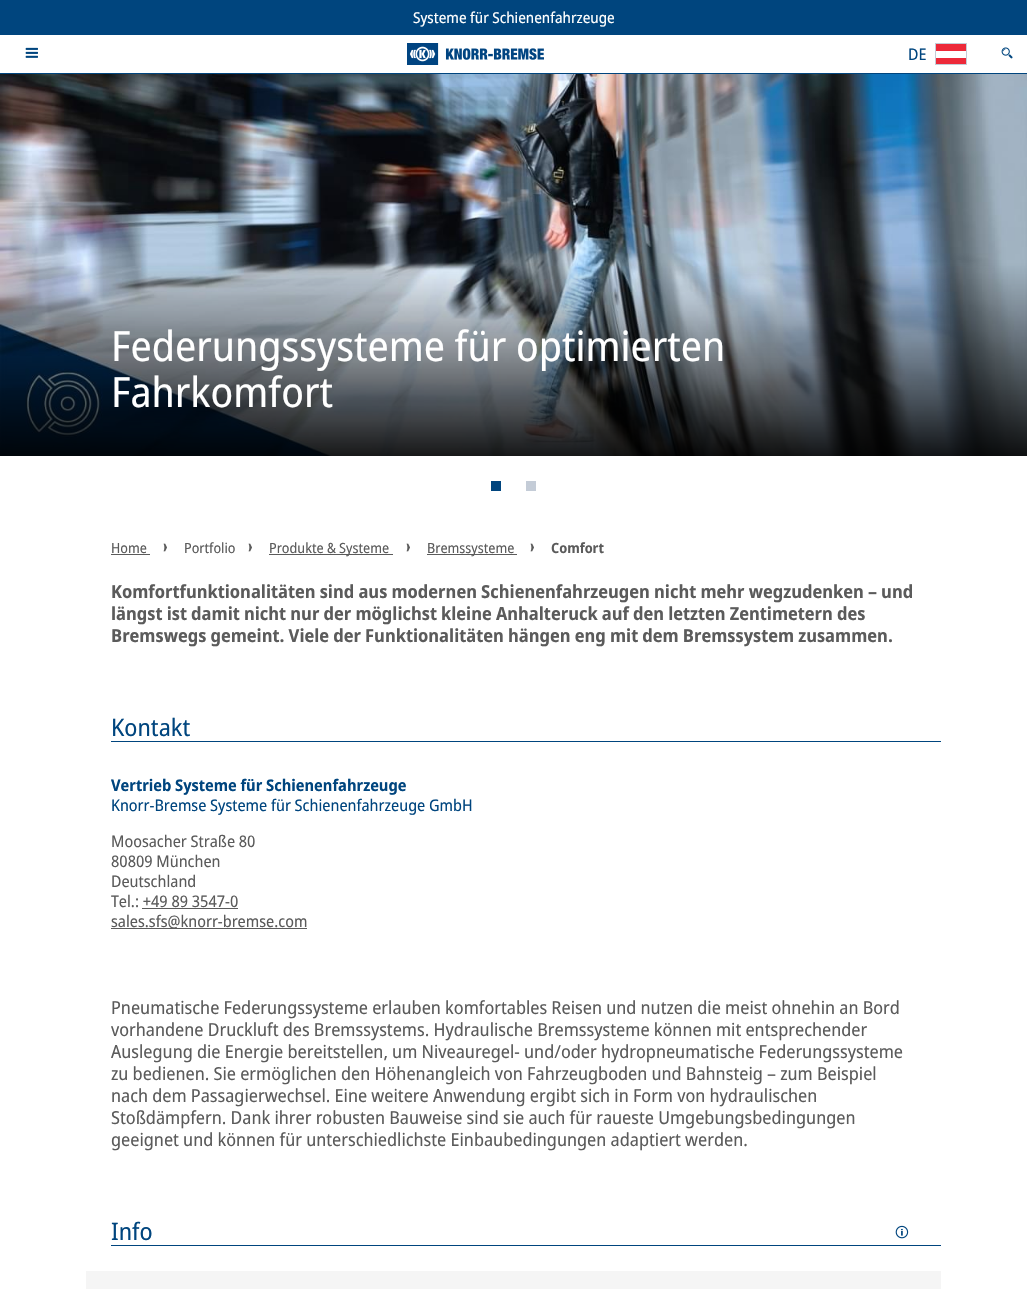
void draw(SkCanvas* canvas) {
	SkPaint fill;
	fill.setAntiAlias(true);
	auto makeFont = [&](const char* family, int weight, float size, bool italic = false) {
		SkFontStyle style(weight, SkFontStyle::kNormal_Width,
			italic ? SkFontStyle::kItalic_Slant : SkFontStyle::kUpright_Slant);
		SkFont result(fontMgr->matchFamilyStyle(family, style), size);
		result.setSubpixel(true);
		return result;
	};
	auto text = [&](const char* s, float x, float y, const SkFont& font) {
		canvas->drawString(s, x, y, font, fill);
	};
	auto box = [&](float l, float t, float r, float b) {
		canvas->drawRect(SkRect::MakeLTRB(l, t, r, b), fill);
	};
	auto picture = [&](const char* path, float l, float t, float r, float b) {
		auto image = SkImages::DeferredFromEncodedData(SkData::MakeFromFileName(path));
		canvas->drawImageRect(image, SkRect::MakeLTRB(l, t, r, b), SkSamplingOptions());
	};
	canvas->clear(0xFFFFFFFF);
	fill.setColor(0xFF00457E);
	box(0, 0, 1027, 35);
	picture("image0.png", 25, 47, 38, 58);
	picture("image1.png", 407, 43, 544, 65);
	fill.setStyle(SkPaint::kStroke_Style);
	fill.setStrokeWidth(1);
	fill.setColor(0xFFC4CCD7);
	canvas->drawRect(SkRect::MakeLTRB(935.5f, 43.5f, 966.5f, 64.5f), fill);
	fill.setStyle(SkPaint::kFill_Style);
	fill.setColor(0xFFED2939);
	box(936, 44, 966, 64);
	fill.setColor(0xFFFFFFFF);
	box(936, 51, 966, 58);
	picture("image2.png", 1001, 47, 1013, 59);
	fill.setColor(0xFF00457E);
	box(0, 73, 1027, 74);
	picture("image3.png", 0, 74, 1027, 456);
	box(491, 481, 501, 491);
	fill.setColor(0xFFC4CCD7);
	box(526, 481, 536, 491);
	fill.setColor(0xFF5B5B5B);
	box(111, 554, 150, 555);
	picture("image4.png", 163, 543, 167, 552);
	picture("image4.png", 248, 543, 252, 552);
	box(269, 554, 393, 555);
	picture("image4.png", 406, 543, 410, 552);
	box(427, 554, 517, 555);
	picture("image4.png", 530, 543, 534, 552);
	fill.setColor(0xFF00457E);
	box(111, 741, 941, 742);
	fill.setColor(0xFF5B5B5B);
	box(142, 908, 238, 909);
	box(111, 928, 307, 929);
	fill.setColor(0xFF00457E);
	box(111, 1245, 941, 1246);
	picture("image5.png", 895, 1225, 909, 1239);
	fill.setColor(0xFFF5F5F5);
	box(86, 1271, 941, 1289);
	auto font1 = makeFont("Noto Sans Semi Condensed", 400, 15);
	fill.setColor(0xFFFFFFFF);
	text("Systeme für Schienenfahrzeuge", 413, 23, font1);
	auto font2 = makeFont("Noto Sans Semi Condensed", 400, 16);
	fill.setColor(0xFF00457E);
	text("DE", 908, 60, font2);
	auto font3 = makeFont("Noto Sans Semi Condensed", 400, 41.6f);
	fill.setColor(0xFFFFFFFF);
	text("Federungssysteme für optimierten", 111, 361, font3);
	text("Fahrkomfort", 111, 407, font3);
	auto font4 = makeFont("Noto Sans Semi Condensed", 400, 14);
	fill.setColor(0xFF5B5B5B);
	text("Home", 111, 553, font4);
	text("Portfolio", 184, 553, font4);
	text("Produkte & Systeme", 269, 553, font4);
	text("Bremssysteme", 427, 553, font4);
	auto font5 = makeFont("Noto Sans Semi Condensed", 700, 14);
	text("Comfort", 551, 553, font5);
	auto font6 = makeFont("Noto Sans Semi Condensed", 700, 18);
	text("Komfortfunktionalitäten sind aus modernen Schienenfahrzeugen nicht mehr wegzudenken – und", 111, 598, font6);
	text("längst ist damit nicht nur der möglichst kleine Anhalteruck auf den letzten Zentimetern des", 111, 620, font6);
	text("Bremswegs gemeint. Viele der Funktionalitäten hängen eng mit dem Bremssystem zusammen.", 111, 642, font6);
	auto font7 = makeFont("Noto Sans Semi Condensed", 400, 24);
	fill.setColor(0xFF00457E);
	text("Kontakt", 111, 736, font7);
	auto font8 = makeFont("Noto Sans Semi Condensed", 700, 16);
	text("Vertrieb Systeme für Schienenfahrzeuge", 111, 791, font8);
	text("Knorr-Bremse Systeme für Schienenfahrzeuge GmbH", 111, 811, font2);
	fill.setColor(0xFF5B5B5B);
	text("Moosacher Straße 80", 111, 847, font2);
	text("80809 München", 111, 867, font2);
	text("Deutschland", 111, 887, font2);
	text("Tel.: +49 89 3547-0", 111, 907, font2);
	text("sales.sfs@knorr-bremse.com", 111, 927, font2);
	auto font9 = makeFont("Noto Sans Semi Condensed", 400, 18);
	text("Pneumatische Federungssysteme erlauben komfortables Reisen und nutzen die meist ohnehin an Bord", 111, 1014, font9);
	text("vorhandene Druckluft des Bremssystems. Hydraulische Bremssysteme können mit entsprechender", 111, 1036, font9);
	text("Auslegung die Energie bereitstellen, um Niveauregel- und/oder hydropneumatische Federungssysteme", 111, 1058, font9);
	text("zu bedienen. Sie ermöglichen den Höhenangleich von Fahrzeugboden und Bahnsteig – zum Beispiel", 111, 1080, font9);
	text("nach dem Passagierwechsel. Eine weitere Anwendung ergibt sich in Form von hydraulischen", 111, 1102, font9);
	text("Stoßdämpfern. Dank ihrer robusten Bauweise sind sie auch für raueste Umgebungsbedingungen", 111, 1124, font9);
	text("geeignet und können für unterschiedlichste Einbaubedingungen adaptiert werden.", 111, 1146, font9);
	fill.setColor(0xFF00457E);
	text("Info", 111, 1240, font7);
}
